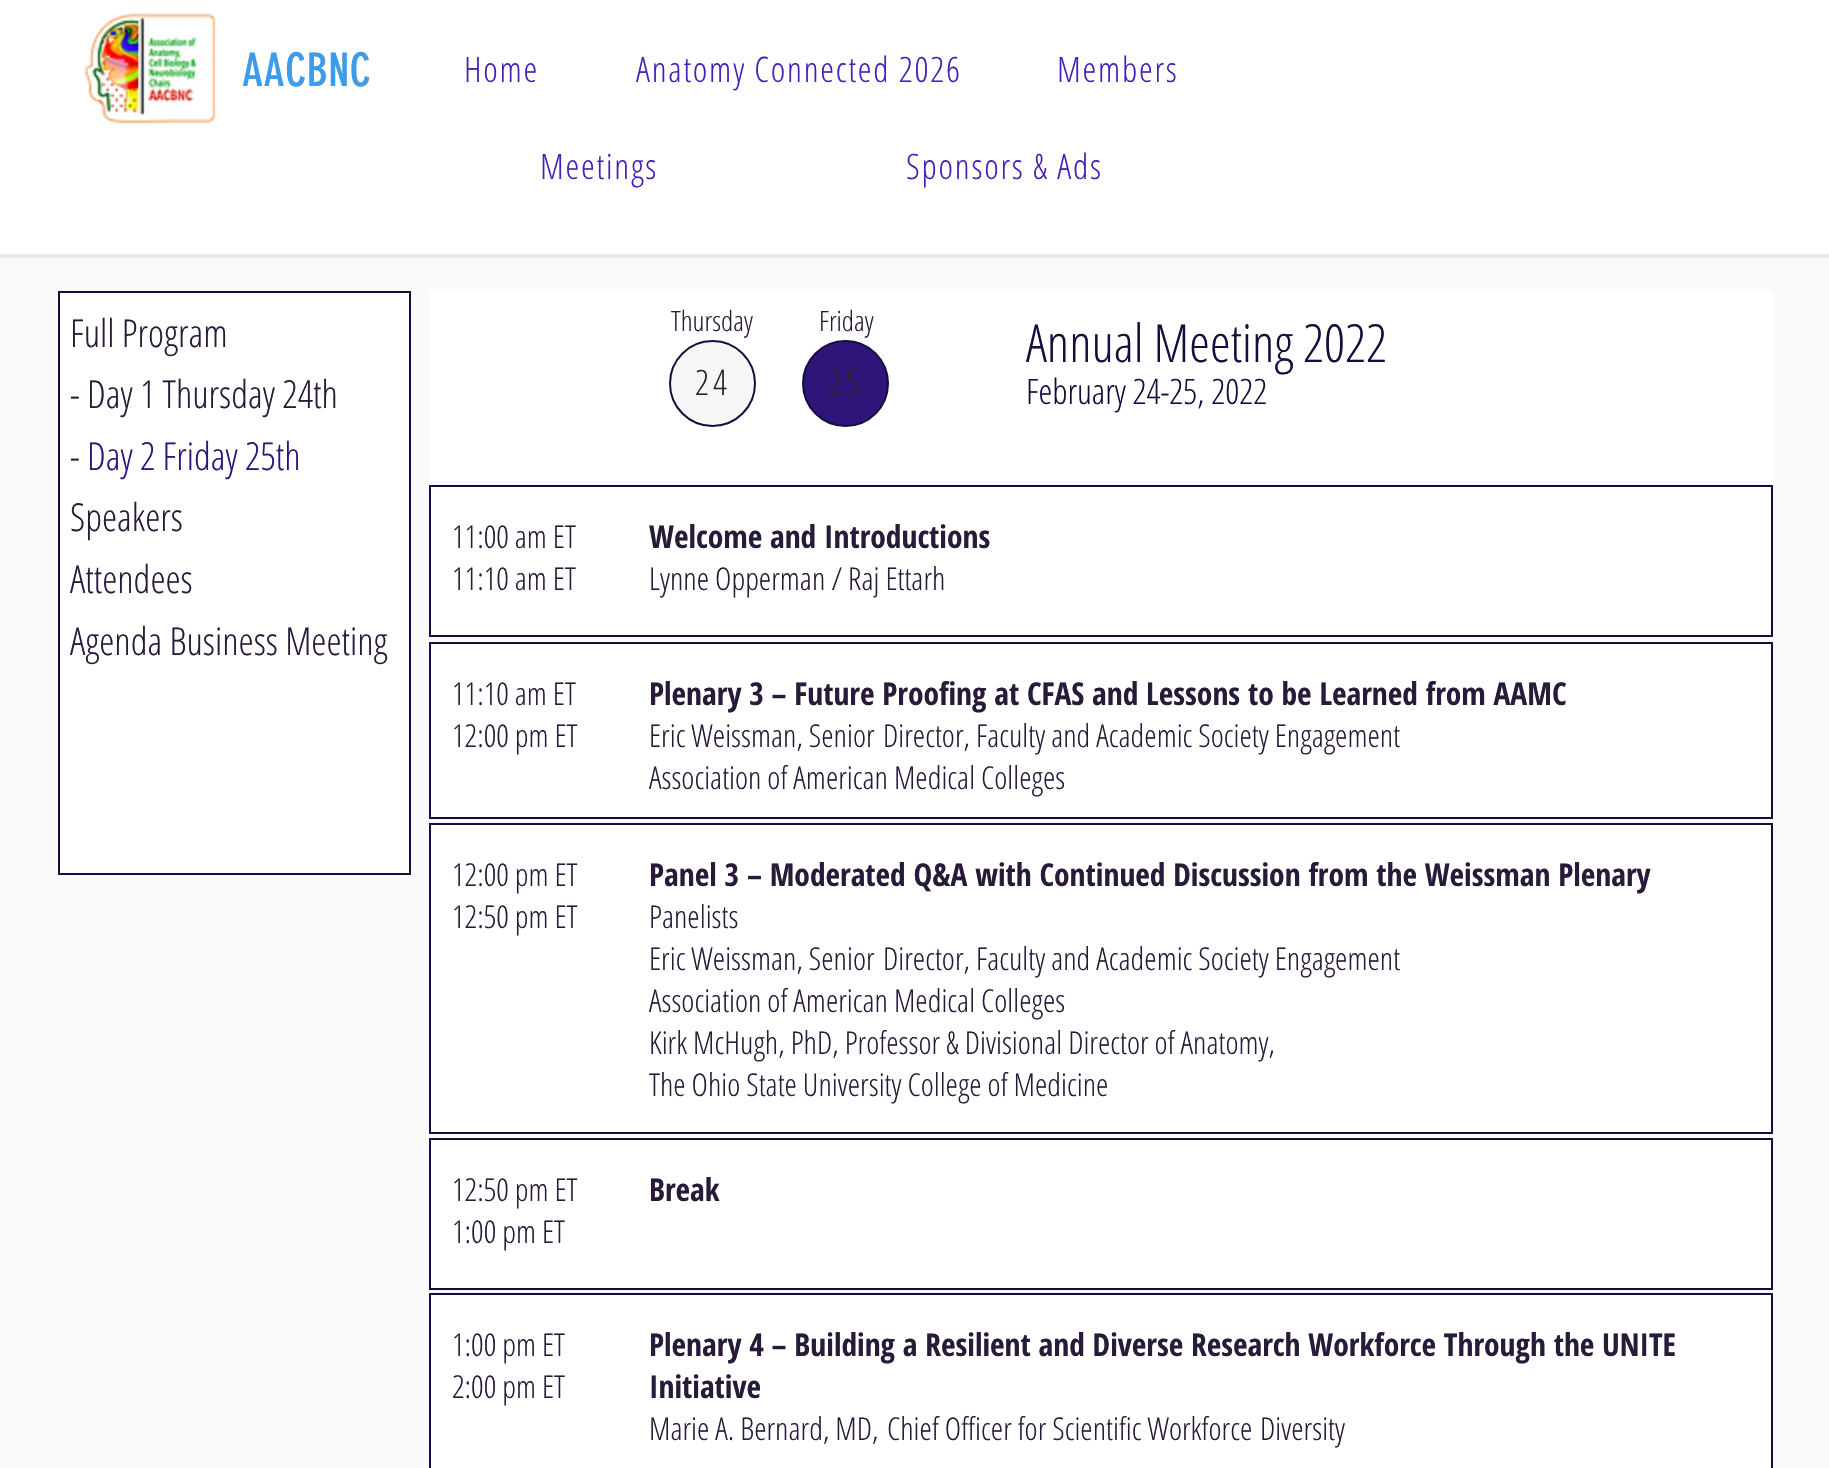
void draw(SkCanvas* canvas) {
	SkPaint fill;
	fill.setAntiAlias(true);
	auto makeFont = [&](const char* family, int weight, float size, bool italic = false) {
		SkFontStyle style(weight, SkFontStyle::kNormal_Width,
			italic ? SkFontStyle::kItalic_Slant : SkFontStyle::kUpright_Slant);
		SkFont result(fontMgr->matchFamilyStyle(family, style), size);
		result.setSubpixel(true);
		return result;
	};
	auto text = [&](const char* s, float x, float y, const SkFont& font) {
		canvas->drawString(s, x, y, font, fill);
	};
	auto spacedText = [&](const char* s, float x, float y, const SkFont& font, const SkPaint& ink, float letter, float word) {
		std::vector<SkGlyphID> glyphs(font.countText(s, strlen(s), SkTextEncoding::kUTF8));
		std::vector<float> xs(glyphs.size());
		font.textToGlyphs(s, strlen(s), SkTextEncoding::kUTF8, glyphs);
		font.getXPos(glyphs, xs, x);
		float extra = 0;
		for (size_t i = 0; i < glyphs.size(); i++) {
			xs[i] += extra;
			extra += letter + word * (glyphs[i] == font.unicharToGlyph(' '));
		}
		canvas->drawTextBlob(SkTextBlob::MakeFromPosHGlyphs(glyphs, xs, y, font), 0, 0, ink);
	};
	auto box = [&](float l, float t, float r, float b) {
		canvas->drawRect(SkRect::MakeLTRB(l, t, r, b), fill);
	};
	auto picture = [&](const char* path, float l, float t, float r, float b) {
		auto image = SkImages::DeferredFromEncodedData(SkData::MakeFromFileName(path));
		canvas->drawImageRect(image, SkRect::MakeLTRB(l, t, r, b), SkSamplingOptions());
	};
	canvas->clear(0xFFFAFAFA);
	fill.setColor(0xFFFFFFFF);
	box(0, 0, 1829, 254);
	fill.setColor(0xFFE6E9EB);
	box(0, 254, 1829, 258);
	picture("image0.png", 84, 13, 216, 124);
	fill.setColor(0xFFFFFFFF);
	canvas->drawRect(SkRect::MakeLTRB(59, 292, 410, 874), fill);
	fill.setStyle(SkPaint::kStroke_Style);
	fill.setStrokeWidth(2);
	fill.setColor(0xFF180B3D);
	canvas->drawRect(SkRect::MakeLTRB(59, 292, 410, 874), fill);
	fill.setStyle(SkPaint::kFill_Style);
	fill.setColor(0xFFFFFFFF);
	box(429, 291, 1773, 481);
	fill.setColor(0xFFF6F6F6);
	canvas->drawCircle(712.5f, 383.5f, 42.5f, fill);
	fill.setStyle(SkPaint::kStroke_Style);
	fill.setColor(0xFF180B3D);
	canvas->drawCircle(712.5f, 383.5f, 42.5f, fill);
	fill.setStyle(SkPaint::kFill_Style);
	fill.setColor(0xFF2F157A);
	canvas->drawCircle(845.5f, 383.5f, 42.5f, fill);
	fill.setStyle(SkPaint::kStroke_Style);
	fill.setColor(0xFF180B3D);
	canvas->drawCircle(845.5f, 383.5f, 42.5f, fill);
	fill.setStyle(SkPaint::kFill_Style);
	fill.setColor(0xFFFFFFFF);
	canvas->drawRect(SkRect::MakeLTRB(430, 486, 1772, 636), fill);
	fill.setStyle(SkPaint::kStroke_Style);
	fill.setColor(0xFF180B3D);
	canvas->drawRect(SkRect::MakeLTRB(430, 486, 1772, 636), fill);
	fill.setStyle(SkPaint::kFill_Style);
	fill.setColor(0xFFFFFFFF);
	canvas->drawRect(SkRect::MakeLTRB(430, 643, 1772, 818), fill);
	fill.setStyle(SkPaint::kStroke_Style);
	fill.setColor(0xFF180B3D);
	canvas->drawRect(SkRect::MakeLTRB(430, 643, 1772, 818), fill);
	fill.setStyle(SkPaint::kFill_Style);
	fill.setColor(0xFFFFFFFF);
	canvas->drawRect(SkRect::MakeLTRB(430, 824, 1772, 1133), fill);
	fill.setStyle(SkPaint::kStroke_Style);
	fill.setColor(0xFF180B3D);
	canvas->drawRect(SkRect::MakeLTRB(430, 824, 1772, 1133), fill);
	fill.setStyle(SkPaint::kFill_Style);
	fill.setColor(0xFFFFFFFF);
	canvas->drawRect(SkRect::MakeLTRB(430, 1139, 1772, 1289), fill);
	fill.setStyle(SkPaint::kStroke_Style);
	fill.setColor(0xFF180B3D);
	canvas->drawRect(SkRect::MakeLTRB(430, 1139, 1772, 1289), fill);
	fill.setStyle(SkPaint::kFill_Style);
	fill.setColor(0xFFFFFFFF);
	canvas->drawRect(SkRect::MakeLTRB(430, 1294, 1772, 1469), fill);
	fill.setStyle(SkPaint::kStroke_Style);
	fill.setColor(0xFF180B3D);
	canvas->drawRect(SkRect::MakeLTRB(430, 1294, 1772, 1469), fill);
	auto font1 = makeFont("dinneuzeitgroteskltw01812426", 400, 45.5f);
	fill.setStyle(SkPaint::kFill_Style);
	fill.setColor(0xFF3D9BE9);
	spacedText("AACBNC", 242, 86, font1, fill, 0.5f, 0);
	auto font2 = makeFont("Open Sans Condensed", 300, 35);
	fill.setColor(0xFF4720B7);
	spacedText("Home", 464, 82, font2, fill, 1.75f, 0);
	spacedText("Anatomy Connected 2026", 636, 82, font2, fill, 1.75f, 0);
	spacedText("Members", 1057, 82, font2, fill, 1.75f, 0);
	spacedText("Meetings", 540, 179, font2, fill, 1.75f, 0);
	spacedText("Sponsors & Ads", 906, 179, font2, fill, 1.75f, 0);
	auto font3 = makeFont("Open Sans Condensed", 300, 38.5f);
	fill.setColor(0xFF281A39);
	text("Full Program", 70, 347, font3);
	text("- Day 1 Thursday 24th", 70, 408, font3);
	text("-", 70, 470, font3);
	fill.setColor(0xFF2F157A);
	text("Day 2 Friday 25th", 87, 470, font3);
	fill.setColor(0xFF281A39);
	text("Speakers", 70, 531, font3);
	text("Attendees", 70, 593, font3);
	text("Agenda Business Meeting", 70, 655, font3);
	auto font4 = makeFont("Open Sans Condensed", 300, 28);
	text("Thursday", 671, 331, font4);
	text("Friday", 819, 331, font4);
	auto font5 = makeFont("Open Sans Condensed", 300, 52.5f);
	fill.setColor(0xFF180B3D);
	text("Annual Meeting 2022", 1026, 362, font5);
	text("February 24-25, 2022", 1026, 404, font2);
	fill.setColor(0xFF282626);
	spacedText("24", 695, 395, font2, fill, 4, 0);
	spacedText("25", 828, 395, font2, fill, 4, 0);
	auto font6 = makeFont("Open Sans Condensed", 300, 31.5f);
	fill.setColor(0xFF281A39);
	text("11:00 am ET", 452, 548, font6);
	text("11:10 am ET", 452, 590, font6);
	auto font7 = makeFont("Open Sans Condensed", 700, 31.5f);
	text("Welcome and Introductions", 649, 548, font7);
	text("Lynne Opperman / Raj Ettarh", 649, 590, font6);
	text("11:10 am ET", 452, 705, font6);
	text("12:00 pm ET", 452, 747, font6);
	text("Plenary 3 – Future Proofing at CFAS and Lessons to be Learned from AAMC", 649, 705, font7);
	text("Eric Weissman, Senior", 649, 747, font6);
	text("Director, Faculty and Academic Society Engagement", 883, 747, font6);
	text("Association of American Medical Colleges", 649, 789, font6);
	text("12:00 pm ET", 452, 886, font6);
	text("12:50 pm ET", 452, 928, font6);
	text("Panel 3 – Moderated Q&A with Continued Discussion from the Weissman Plenary", 649, 886, font7);
	text("Panelists", 649, 928, font6);
	text("Eric Weissman, Senior", 649, 970, font6);
	text("Director, Faculty and Academic Society Engagement", 883, 970, font6);
	text("Association of American Medical Colleges", 649, 1012, font6);
	text("Kirk McHugh, PhD, Professor & Divisional Director of Anatomy,", 649, 1054, font6);
	text("The Ohio State University College of Medicine", 649, 1096, font6);
	text("12:50 pm ET", 452, 1201, font6);
	text("1:00 pm ET", 452, 1243, font6);
	text("Break", 649, 1201, font7);
	text("1:00 pm ET", 452, 1356, font6);
	text("2:00 pm ET", 452, 1398, font6);
	text("Plenary 4 – Building a Resilient and Diverse Research Workforce Through the UNITE", 649, 1356, font7);
	text("Initiative", 649, 1398, font7);
	text("Marie A. Bernard, MD,", 649, 1440, font6);
	text("Chief Officer for Scientific Workforce", 887, 1440, font6);
	text("Diversity", 1260, 1440, font6);
}
